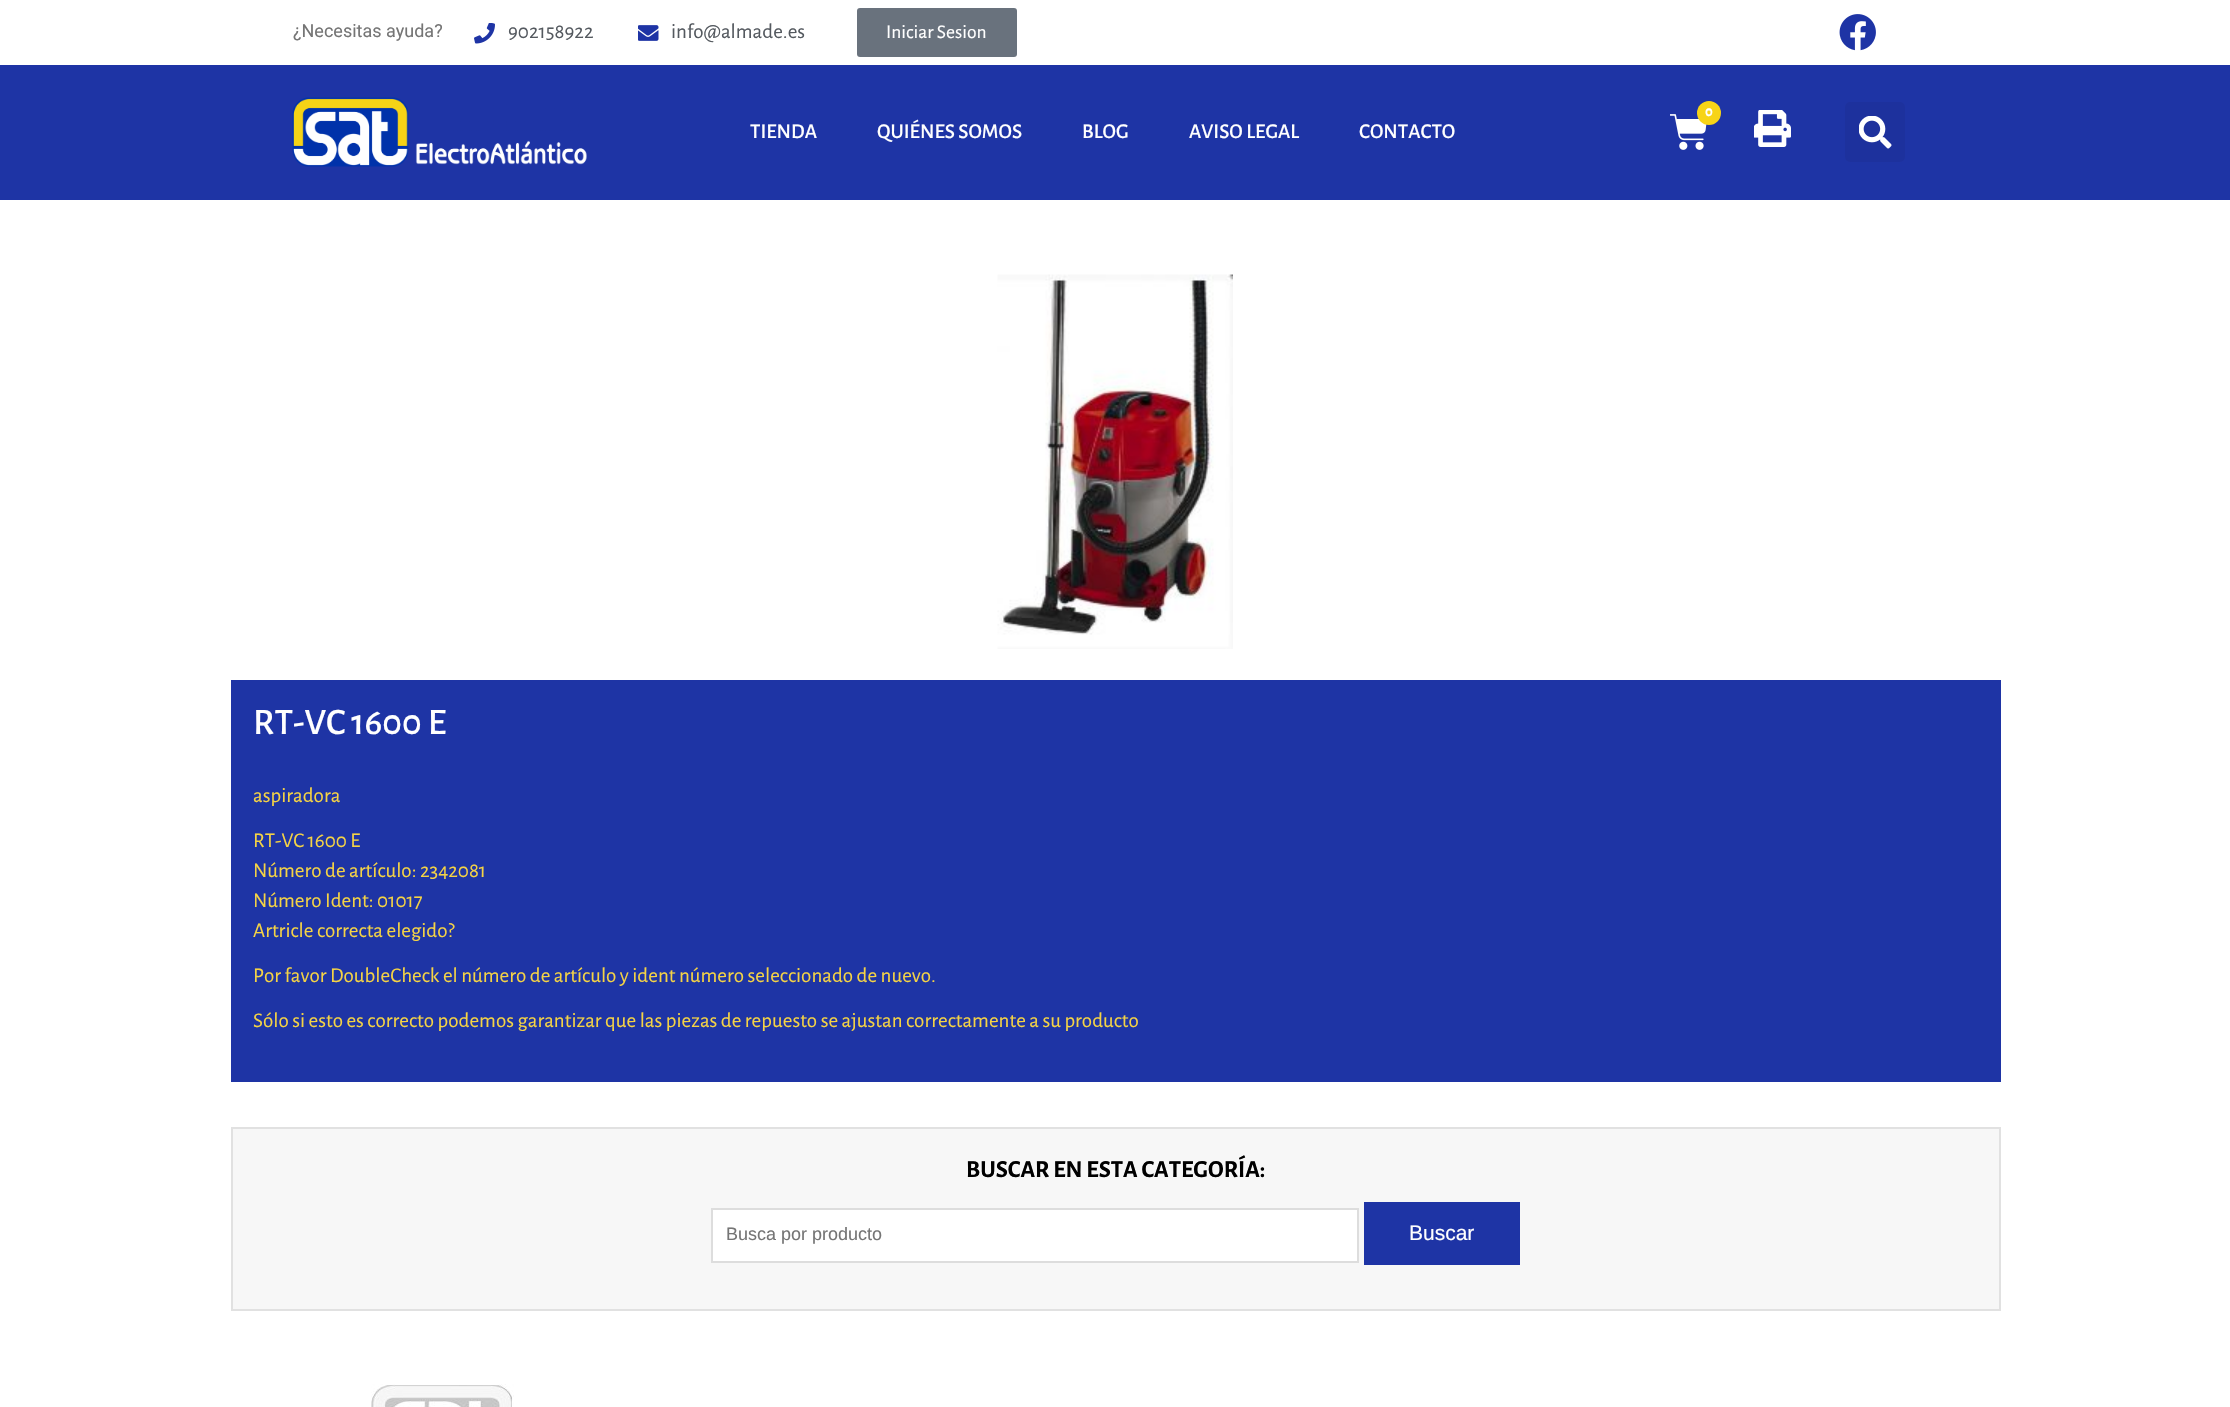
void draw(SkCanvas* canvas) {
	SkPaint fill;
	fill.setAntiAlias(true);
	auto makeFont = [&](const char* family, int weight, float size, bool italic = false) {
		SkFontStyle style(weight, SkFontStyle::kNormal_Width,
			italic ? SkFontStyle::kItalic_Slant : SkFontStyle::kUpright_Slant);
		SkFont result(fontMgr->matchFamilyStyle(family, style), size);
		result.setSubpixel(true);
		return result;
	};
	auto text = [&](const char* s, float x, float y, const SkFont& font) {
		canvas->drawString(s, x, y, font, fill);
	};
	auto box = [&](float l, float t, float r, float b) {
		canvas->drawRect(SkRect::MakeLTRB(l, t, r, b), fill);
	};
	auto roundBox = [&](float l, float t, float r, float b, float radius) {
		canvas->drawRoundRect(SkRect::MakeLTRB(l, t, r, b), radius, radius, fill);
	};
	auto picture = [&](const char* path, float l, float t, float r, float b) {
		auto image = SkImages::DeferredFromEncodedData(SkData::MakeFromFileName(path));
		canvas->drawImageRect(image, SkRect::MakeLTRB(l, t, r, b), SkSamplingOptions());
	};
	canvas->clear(0xFFFFFFFF);
	picture("image0.png", 474, 23, 495, 44);
	picture("image1.png", 638, 25, 659, 41);
	fill.setColor(0xFF69727D);
	roundBox(857, 8, 1017, 57, 3);
	picture("image2.png", 1839, 14, 1876, 51);
	fill.setColor(0xFF1E34A5);
	box(0, 65, 2230, 200);
	picture("image3.png", 292, 97, 587, 167);
	picture("image4.png", 1670, 114, 1707, 150);
	fill.setColor(0xFFF7D417);
	canvas->drawCircle(1709, 113, 12, fill);
	picture("image5.png", 1754, 110, 1791, 147);
	fill.setColor(0xFF1D319D);
	roundBox(1845, 102, 1905, 162, 5);
	picture("image6.png", 1859, 116, 1892, 149);
	picture("image7.png", 997, 274, 1233, 649);
	fill.setColor(0xFF1E34A5);
	box(231, 680, 2001, 1082);
	fill.setColor(0xFFF7F7F7);
	canvas->drawRect(SkRect::MakeLTRB(232, 1128, 2000, 1310), fill);
	fill.setStyle(SkPaint::kStroke_Style);
	fill.setStrokeWidth(2);
	fill.setColor(0xFFE1E1E1);
	canvas->drawRect(SkRect::MakeLTRB(232, 1128, 2000, 1310), fill);
	fill.setStyle(SkPaint::kFill_Style);
	fill.setColor(0xFFFFFFFF);
	canvas->drawRect(SkRect::MakeLTRB(712, 1209, 1358, 1262), fill);
	fill.setStyle(SkPaint::kStroke_Style);
	fill.setColor(0xFFDDDDDD);
	canvas->drawRect(SkRect::MakeLTRB(712, 1209, 1358, 1262), fill);
	fill.setStyle(SkPaint::kFill_Style);
	fill.setColor(0xFF1E34A5);
	box(1364, 1202, 1520, 1265);
	picture("image8.png", 371, 1384, 514, 1407);
	auto font1 = makeFont("Roboto", 400, 18);
	fill.setColor(0xFF757575);
	text("¿Necesitas ayuda?", 293, 37, font1);
	auto font2 = makeFont("Alegreya Sans", 400, 21);
	fill.setColor(0xFF54595F);
	text("902158922", 508, 38, font2);
	text("info@almade.es", 671, 38, font2);
	auto font3 = makeFont("Alegreya Sans", 400, 19.5f);
	fill.setColor(0xFFFFFFFF);
	text("Iniciar Sesion", 886, 38, font3);
	auto font4 = makeFont("Alegreya Sans", 700, 15);
	text("0", 1705, 116, font4);
	auto font5 = makeFont("Alegreya Sans", 500, 21);
	text("TIENDA", 750, 138, font5);
	text("QUIÉNES SOMOS", 877, 138, font5);
	text("BLOG", 1082, 138, font5);
	text("AVISO LEGAL", 1189, 138, font5);
	text("CONTACTO", 1359, 138, font5);
	auto font6 = makeFont("Alegreya Sans", 500, 37.5f);
	text("RT-VC 1600 E", 253, 734, font6);
	fill.setColor(0xFFF5D345);
	text("aspiradora", 253, 802, font2);
	text("RT-VC 1600 E", 253, 847, font2);
	text("Número de artículo: 2342081", 253, 877, font2);
	text("Número Ident: 01017", 253, 907, font2);
	text("Artricle correcta elegido?", 253, 937, font2);
	text("Por favor DoubleCheck el número de artículo y ident número seleccionado de nuevo.", 253, 982, font2);
	text("Sólo si esto es correcto podemos garantizar que las piezas de repuesto se ajustan correctamente a su producto", 253, 1027, font2);
	auto font7 = makeFont("Alegreya Sans", 700, 24.4f);
	fill.setColor(0xFF000000);
	text("BUSCAR EN ESTA CATEGORÍA:", 966, 1177, font7);
	auto font8 = makeFont("Liberation Sans", 400, 18);
	fill.setColor(0xFF757575);
	text("Busca por producto", 726, 1240, font8);
	auto font9 = makeFont("Liberation Sans", 400, 21);
	fill.setColor(0xFFFFFFFF);
	text("Buscar", 1409, 1240, font9);
}
